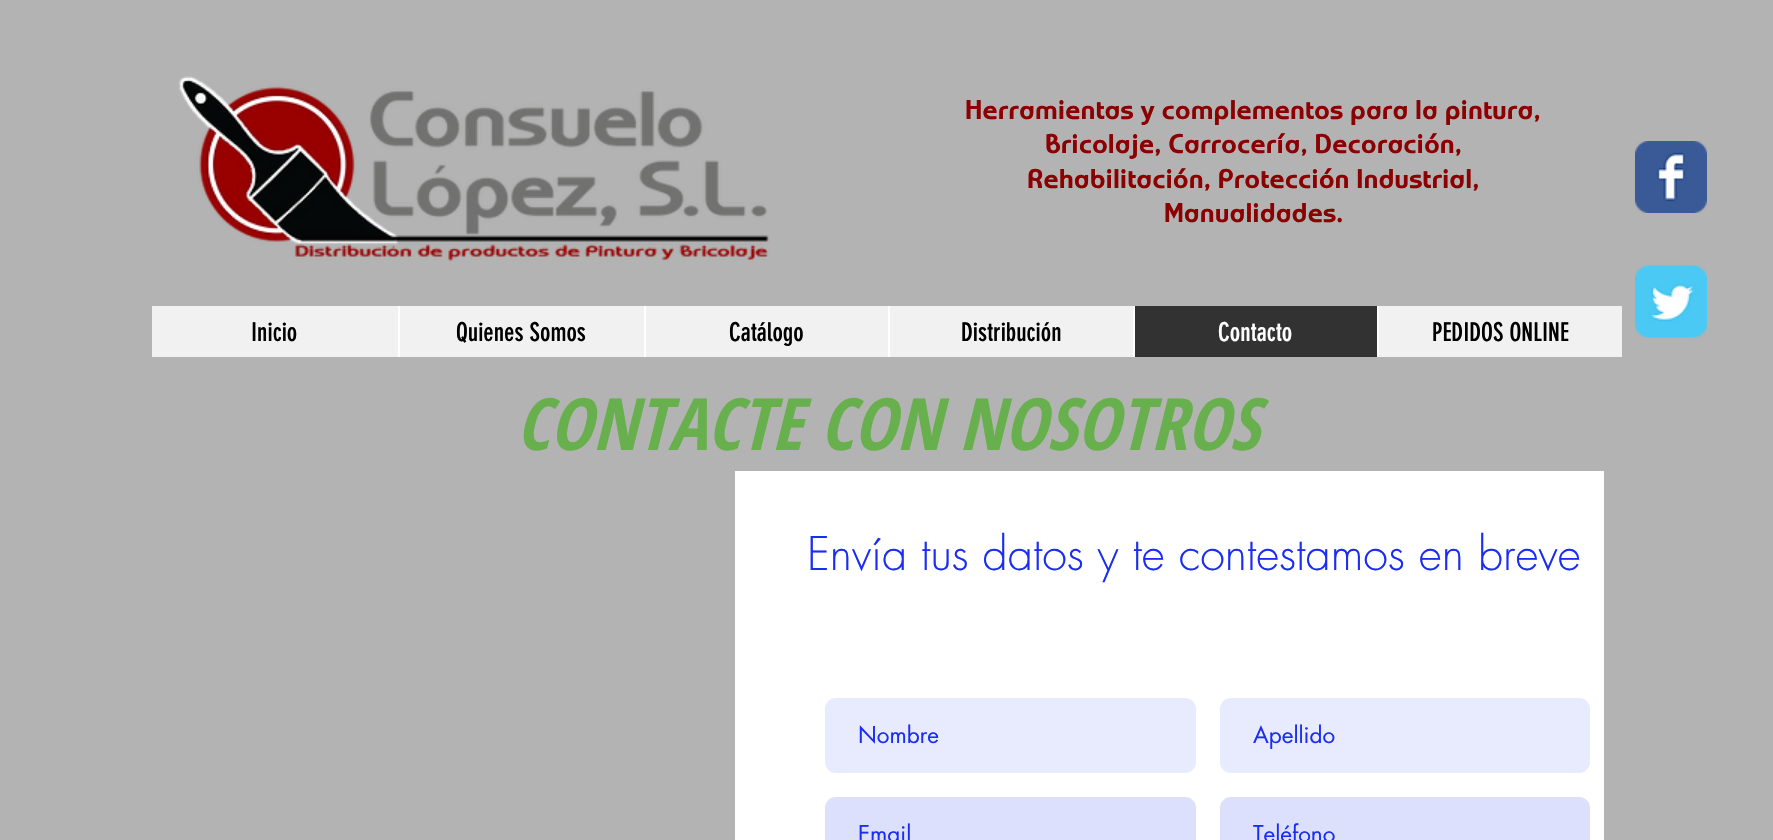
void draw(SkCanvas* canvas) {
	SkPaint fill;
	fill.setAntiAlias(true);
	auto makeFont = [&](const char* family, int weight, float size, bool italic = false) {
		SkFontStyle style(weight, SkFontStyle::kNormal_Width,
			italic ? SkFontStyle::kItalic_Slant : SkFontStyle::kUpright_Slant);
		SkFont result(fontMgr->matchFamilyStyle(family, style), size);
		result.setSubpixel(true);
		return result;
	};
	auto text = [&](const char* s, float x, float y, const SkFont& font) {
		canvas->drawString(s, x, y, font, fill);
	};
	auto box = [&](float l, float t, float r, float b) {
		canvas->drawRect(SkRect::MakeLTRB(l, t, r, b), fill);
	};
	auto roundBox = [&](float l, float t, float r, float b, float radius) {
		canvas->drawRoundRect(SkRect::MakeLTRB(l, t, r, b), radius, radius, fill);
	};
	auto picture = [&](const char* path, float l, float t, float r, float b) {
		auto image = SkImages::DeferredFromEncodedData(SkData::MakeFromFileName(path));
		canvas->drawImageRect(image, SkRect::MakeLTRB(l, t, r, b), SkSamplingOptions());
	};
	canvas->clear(0xFFB3B3B3);
	picture("image0.png", 178, 76, 769, 262);
	picture("image1.png", 1635, 141, 1707, 213);
	picture("image2.png", 1635, 265, 1707, 338);
	fill.setColor(0xFFF1F1F1);
	box(152, 306, 1622, 357);
	fill.setColor(0xFFFFFFFF);
	box(398, 306, 400, 357);
	box(644, 306, 646, 357);
	box(888, 306, 890, 357);
	fill.setColor(0xFF323232);
	box(1135, 306, 1377, 357);
	fill.setColor(0xFFFFFFFF);
	box(1133, 306, 1135, 357);
	box(1377, 306, 1379, 357);
	box(735, 471, 1604, 840);
	fill.setColor(0xFFE8EAFE);
	roundBox(825, 698, 1196, 773, 11);
	roundBox(1220, 698, 1590, 773, 11);
	fill.setColor(0xFFDDE0FD);
	roundBox(825, 797, 1196, 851, 11);
	roundBox(1220, 797, 1590, 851, 11);
	auto font1 = makeFont("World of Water", 400, 27);
	fill.setColor(0xFF8B0000);
	text("Herramientas y complementos para la pintura,", 965, 119, font1);
	text("Bricolaje, Carrocería, Decoración,", 1045, 153, font1);
	text("Rehabilitación, Protección Industrial,", 1027, 188, font1);
	text("Manualidades.", 1164, 222, font1);
	auto font2 = makeFont("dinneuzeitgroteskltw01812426", 400, 25.5f);
	fill.setColor(0xFF000000);
	text("Inicio", 251, 341, font2);
	text("Quienes Somos", 456, 341, font2);
	text("Catálogo", 729, 341, font2);
	text("Distribución", 961, 341, font2);
	fill.setColor(0xFFFFFFFF);
	text("Contacto", 1218, 341, font2);
	fill.setColor(0xFF000000);
	text("PEDIDOS ONLINE", 1432, 341, font2);
	auto font3 = makeFont("Open Sans Condensed", 700, 72, true);
	fill.setColor(0xFF68B04D);
	text("CONTACTE CON NOSOTROS", 516, 450, font3);
	auto font4 = makeFont("futura", 300, 45);
	fill.setColor(0xFF1A2DF3);
	text("Envía tus datos y te contestamos en breve", 807, 570, font4);
	auto font5 = makeFont("futura", 400, 22.5f);
	text("Nombre", 858, 743, font5);
	text("Apellido", 1253, 743, font5);
	text("Email", 858, 842, font5);
	text("Teléfono", 1253, 842, font5);
}
